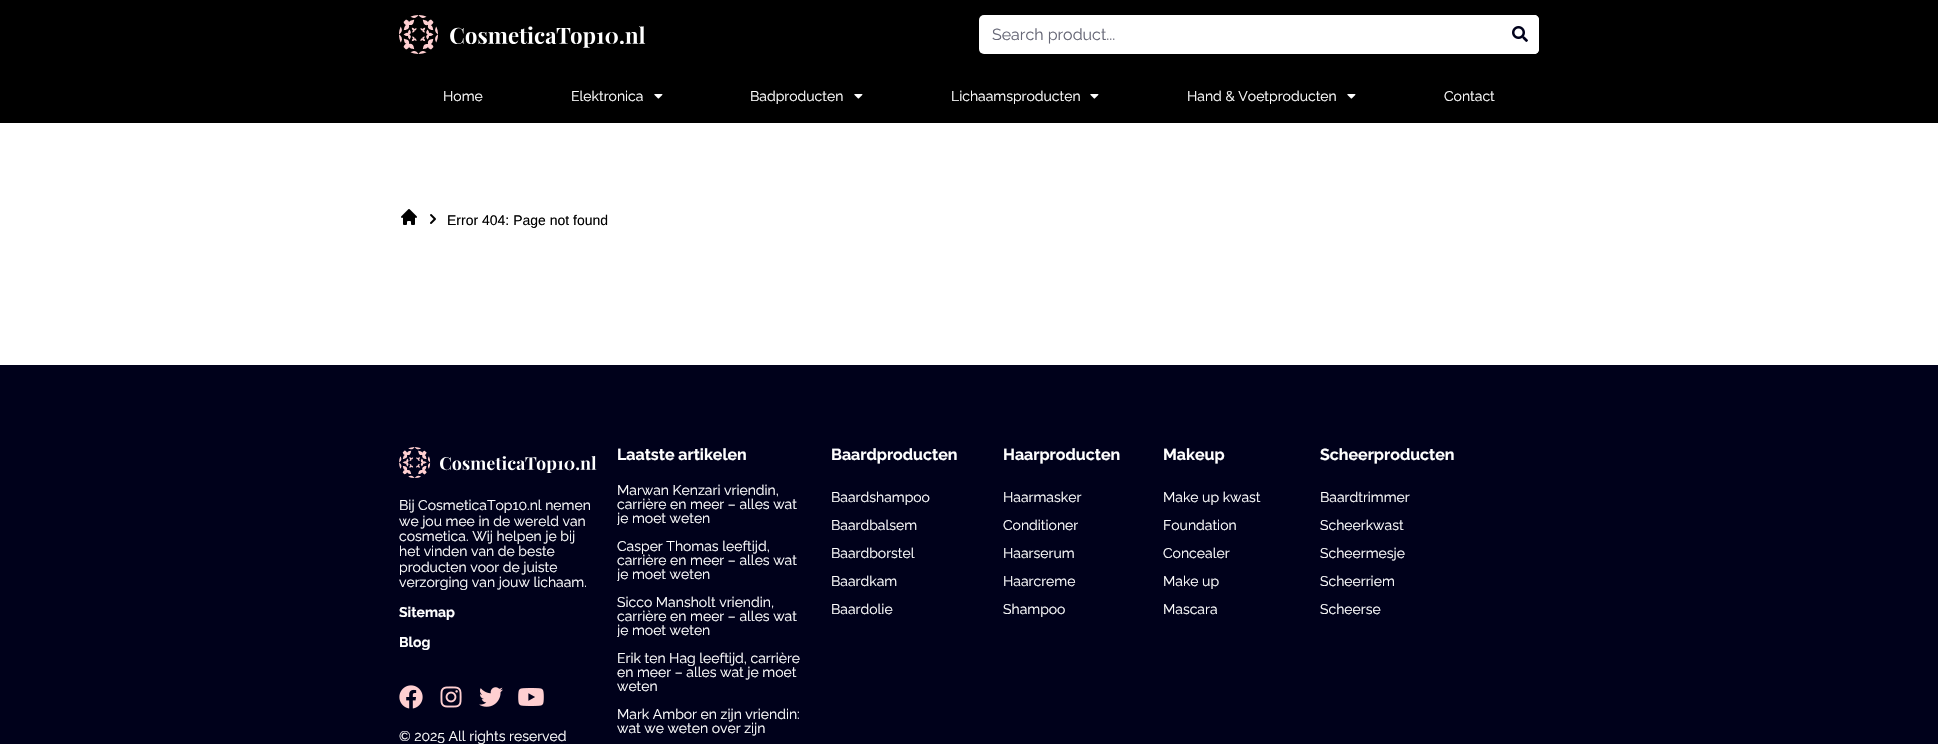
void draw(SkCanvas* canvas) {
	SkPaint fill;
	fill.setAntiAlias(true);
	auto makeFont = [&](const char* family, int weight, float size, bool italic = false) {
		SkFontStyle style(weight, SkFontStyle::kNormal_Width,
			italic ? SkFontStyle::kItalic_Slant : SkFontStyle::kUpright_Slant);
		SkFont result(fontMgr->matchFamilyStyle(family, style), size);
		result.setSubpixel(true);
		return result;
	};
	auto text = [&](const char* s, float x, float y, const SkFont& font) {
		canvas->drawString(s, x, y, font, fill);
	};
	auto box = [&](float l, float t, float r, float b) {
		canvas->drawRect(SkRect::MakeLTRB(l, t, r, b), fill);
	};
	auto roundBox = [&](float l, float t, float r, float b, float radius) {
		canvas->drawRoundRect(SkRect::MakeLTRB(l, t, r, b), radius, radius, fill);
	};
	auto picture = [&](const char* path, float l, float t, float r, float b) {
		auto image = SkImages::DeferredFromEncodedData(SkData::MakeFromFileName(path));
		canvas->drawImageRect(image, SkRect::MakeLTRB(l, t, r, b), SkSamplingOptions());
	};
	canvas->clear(0xFFFFFFFF);
	fill.setColor(0xFF000000);
	box(0, 0, 1938, 123);
	picture("image0.png", 399, 15, 646, 54);
	fill.setColor(0xFFFFFFFF);
	roundBox(979, 15, 1539, 54, 5);
	canvas->drawPath(SkPathBuilder().moveTo(1500, 15).lineTo(1534, 15).cubicTo(1537, 15, 1539, 17, 1539, 20).lineTo(1539, 49).cubicTo(1539, 52, 1537, 54, 1534, 54).lineTo(1500, 54).close().detach(), fill);
	picture("image1.png", 1512, 26, 1528, 42);
	picture("image2.png", 654, 94, 663, 99);
	picture("image2.png", 854, 94, 863, 99);
	picture("image2.png", 1090, 94, 1099, 99);
	picture("image2.png", 1347, 94, 1356, 99);
	picture("image3.png", 401, 209, 417, 225);
	picture("image4.png", 430, 214, 436, 224);
	fill.setColor(0xFF00011B);
	box(0, 365, 1938, 744);
	picture("image5.png", 399, 447, 597, 478);
	picture("image6.png", 399, 685, 423, 709);
	picture("image7.png", 440, 686, 462, 708);
	picture("image8.png", 479, 687, 503, 707);
	picture("image9.png", 518, 688, 544, 706);
	auto font1 = makeFont("Raleway", 400, 16);
	fill.setColor(0xFF666776);
	text("Search product...", 992, 40, font1);
	auto font2 = makeFont("Raleway", 400, 14);
	fill.setColor(0xFFFFFFFF);
	text("Home", 443, 101, font2);
	text("Elektronica", 571, 101, font2);
	text("Badproducten", 750, 101, font2);
	text("Lichaamsproducten", 951, 101, font2);
	text("Hand & Voetproducten", 1187, 101, font2);
	text("Contact", 1444, 101, font2);
	auto font3 = makeFont("Liberation Sans", 400, 14);
	fill.setColor(0xFF000000);
	text("Error 404: Page not found", 447, 225, font3);
	fill.setColor(0xFFFFFFFF);
	text("Bij CosmeticaTop10.nl nemen", 399, 510, font2);
	text("we jou mee in de wereld van", 399, 526, font2);
	text("cosmetica. Wij helpen je bij", 399, 541, font2);
	text("het vinden van de beste", 399, 556, font2);
	text("producten voor de juiste", 399, 572, font2);
	text("verzorging van jouw lichaam.", 399, 587, font2);
	auto font4 = makeFont("Raleway", 700, 14);
	text("Sitemap", 399, 617, font4);
	text("Blog", 399, 647, font4);
	text("© 2025 All rights reserved", 399, 741, font2);
	auto font5 = makeFont("Raleway", 700, 16);
	text("Laatste artikelen", 617, 460, font5);
	text("Marwan Kenzari vriendin,", 617, 495, font2);
	text("carrière en meer – alles wat", 617, 509, font2);
	canvas->save();
	canvas->clipRect(SkRect::MakeLTRB(617, 483, 811, 525));
	text("je moet weten", 617, 523, font2);
	canvas->restore();
	text("Casper Thomas leeftijd,", 617, 551, font2);
	text("carrière en meer – alles wat", 617, 565, font2);
	canvas->save();
	canvas->clipRect(SkRect::MakeLTRB(617, 539, 811, 581));
	text("je moet weten", 617, 579, font2);
	canvas->restore();
	text("Sicco Mansholt vriendin,", 617, 607, font2);
	text("carrière en meer – alles wat", 617, 621, font2);
	canvas->save();
	canvas->clipRect(SkRect::MakeLTRB(617, 595, 811, 637));
	text("je moet weten", 617, 635, font2);
	canvas->restore();
	text("Erik ten Hag leeftijd, carrière", 617, 663, font2);
	text("en meer – alles wat je moet", 617, 677, font2);
	text("weten", 617, 691, font2);
	text("Mark Ambor en zijn vriendin:", 617, 719, font2);
	text("wat we weten over zijn", 617, 733, font2);
	text("Baardproducten", 831, 460, font5);
	text("Baardshampoo", 831, 502, font2);
	text("Baardbalsem", 831, 530, font2);
	text("Baardborstel", 831, 558, font2);
	text("Baardkam", 831, 586, font2);
	text("Baardolie", 831, 614, font2);
	text("Haarproducten", 1003, 460, font5);
	text("Haarmasker", 1003, 502, font2);
	text("Conditioner", 1003, 530, font2);
	text("Haarserum", 1003, 558, font2);
	text("Haarcreme", 1003, 586, font2);
	text("Shampoo", 1003, 614, font2);
	text("Makeup", 1163, 460, font5);
	text("Make up kwast", 1163, 502, font2);
	text("Foundation", 1163, 530, font2);
	text("Concealer", 1163, 558, font2);
	text("Make up", 1163, 586, font2);
	text("Mascara", 1163, 614, font2);
	text("Scheerproducten", 1320, 460, font5);
	text("Baardtrimmer", 1320, 502, font2);
	text("Scheerkwast", 1320, 530, font2);
	text("Scheermesje", 1320, 558, font2);
	text("Scheerriem", 1320, 586, font2);
	text("Scheerse", 1320, 614, font2);
}
